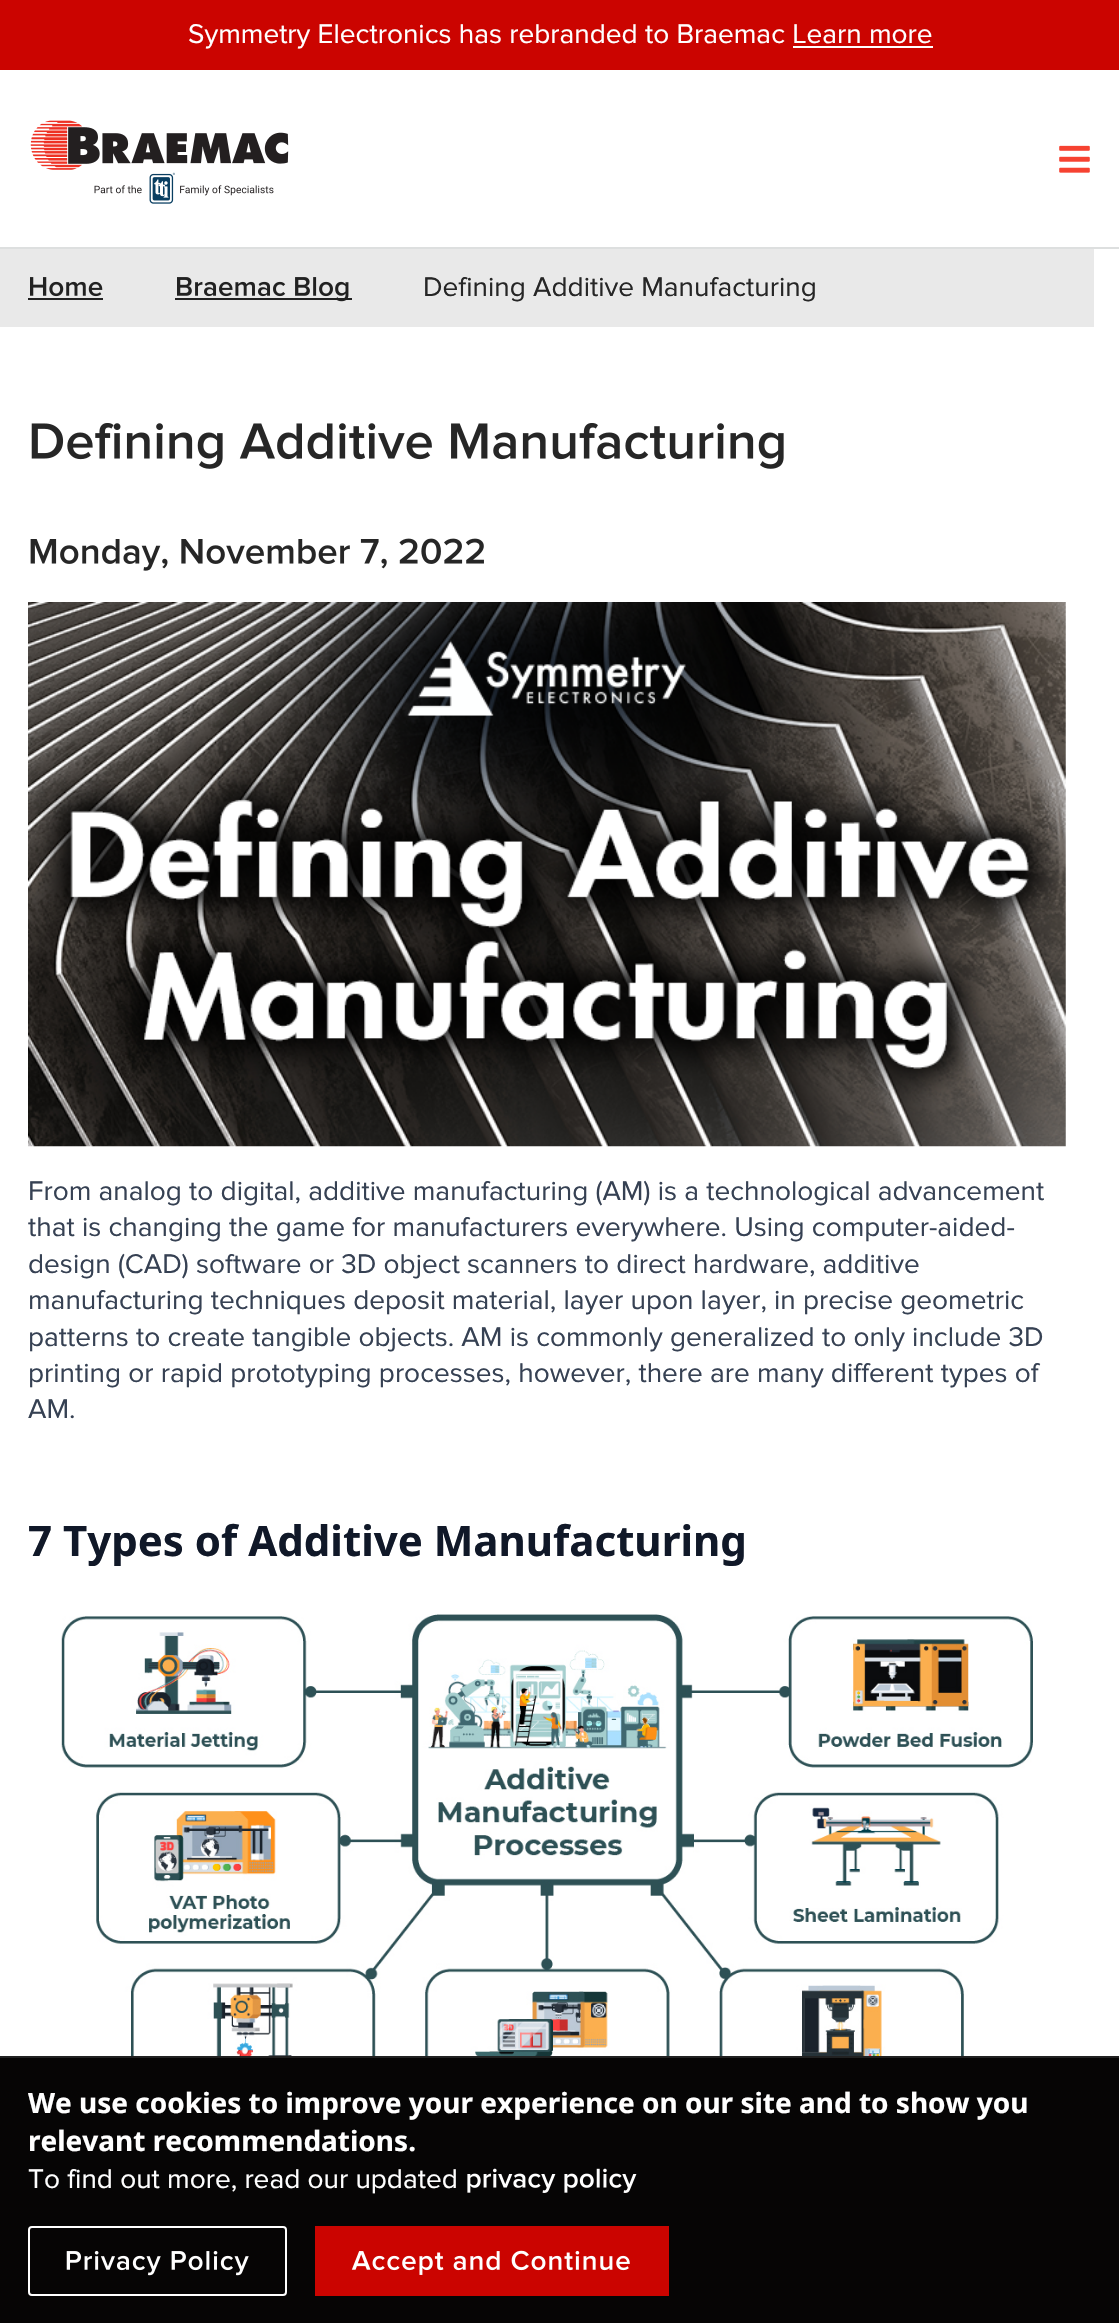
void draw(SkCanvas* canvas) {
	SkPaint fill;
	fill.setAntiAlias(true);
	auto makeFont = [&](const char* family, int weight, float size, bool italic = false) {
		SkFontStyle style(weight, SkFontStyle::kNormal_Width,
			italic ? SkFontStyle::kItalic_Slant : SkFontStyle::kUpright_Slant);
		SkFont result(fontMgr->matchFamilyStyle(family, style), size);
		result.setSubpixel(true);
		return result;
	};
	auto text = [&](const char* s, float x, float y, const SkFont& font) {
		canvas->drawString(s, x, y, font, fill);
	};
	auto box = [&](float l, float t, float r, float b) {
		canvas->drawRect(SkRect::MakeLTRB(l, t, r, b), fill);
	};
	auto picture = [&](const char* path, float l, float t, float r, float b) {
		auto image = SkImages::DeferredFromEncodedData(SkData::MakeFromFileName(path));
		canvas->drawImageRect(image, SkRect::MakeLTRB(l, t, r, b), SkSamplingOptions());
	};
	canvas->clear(0xFFFFFFFF);
	fill.setColor(0xFFDDDFDF);
	box(0, 247, 1119, 249);
	fill.setColor(0xFFCB0400);
	box(0, 0, 1119, 70);
	fill.setColor(0xFFFFFFFF);
	box(793, 46, 933, 48);
	picture("image0.png", 30, 120, 289, 204);
	picture("image1.png", 1059, 145, 1090, 173);
	fill.setColor(0xFFE9E9E9);
	box(0, 249, 1094, 327);
	picture("image2.png", 30, 277, 103, 297);
	fill.setColor(0xFF212121);
	box(28, 298, 103, 300);
	box(175, 298, 352, 300);
	picture("image3.png", 177, 277, 349, 302);
	picture("image4.png", 31, 423, 784, 469);
	picture("image5.png", 30, 538, 484, 571);
	picture("image6.png", 28, 602, 1066, 1147);
	picture("image7.png", 61, 1614, 1033, 2056);
	fill.setColor(0xFF060505);
	box(0, 2058, 1119, 2323);
	fill.setColor(0xFF212121);
	box(0, 2056, 1119, 2058);
	picture("image8.png", 467, 2168, 637, 2193);
	fill.setStyle(SkPaint::kStroke_Style);
	fill.setStrokeWidth(2);
	fill.setColor(0xFFFFFFFF);
	canvas->drawRoundRect(SkRect::MakeLTRB(29, 2227, 286, 2295), 3, 3, fill);
	picture("image9.png", 66, 2250, 249, 2276);
	fill.setStyle(SkPaint::kFill_Style);
	fill.setColor(0xFFCB0400);
	box(315, 2226, 669, 2296);
	picture("image10.png", 351, 2250, 630, 2275);
	auto font1 = makeFont("Proxima Nova", 400, 28);
	fill.setColor(0xFFFFFFFF);
	text("Symmetry Electronics has rebranded to Braemac Learn more", 188, 43, font1);
	fill.setColor(0xFF262626);
	text("Defining Additive Manufacturing", 423, 296, font1);
	fill.setColor(0xFF364153);
	text("From analog to digital, additive manufacturing (AM) is a technological advancement", 28, 1200, font1);
	text("that is changing the game for manufacturers everywhere. Using computer-aided-", 28, 1236, font1);
	text("design (CAD) software or 3D object scanners to direct hardware, additive", 28, 1273, font1);
	text("manufacturing techniques deposit material, layer upon layer, in precise geometric", 28, 1309, font1);
	text("patterns to create tangible objects. AM is commonly generalized to only include 3D", 28, 1346, font1);
	text("printing or rapid prototyping processes, however, there are many different types of", 28, 1382, font1);
	text("AM.", 28, 1418, font1);
	auto font2 = makeFont("Noto Sans", 700, 42);
	fill.setColor(0xFF101828);
	text("7 Types of Additive Manufacturing", 28, 1556, font2);
	auto font3 = makeFont("Noto Sans", 700, 28);
	fill.setColor(0xFFFFFFFF);
	text("We use cookies to improve your experience on our site and to show you", 28, 2113, font3);
	text("relevant recommendations.", 28, 2151, font3);
	text("To find out more, read our updated", 28, 2188, font1);
}
